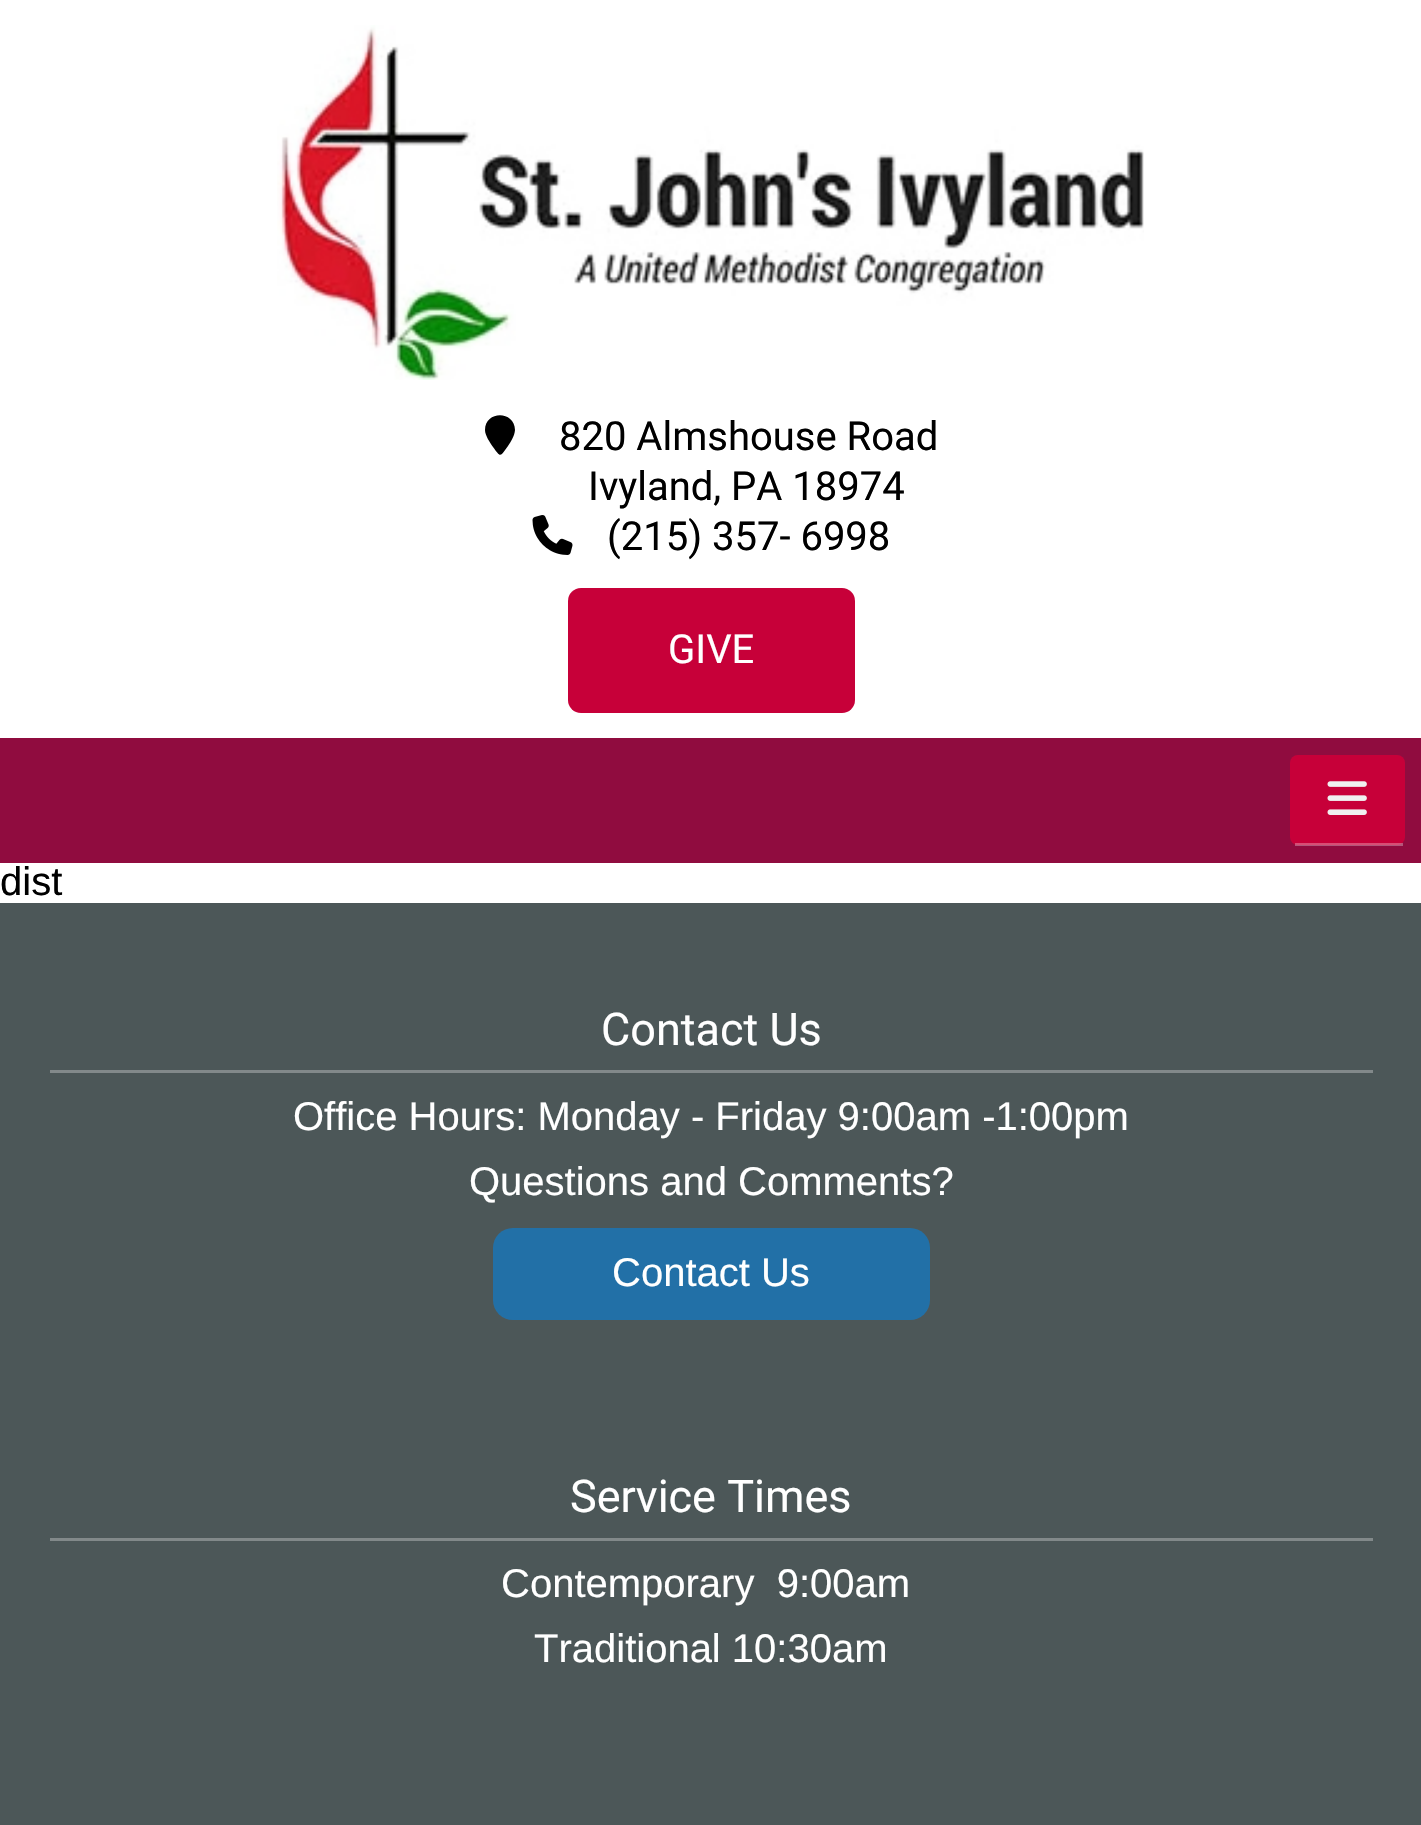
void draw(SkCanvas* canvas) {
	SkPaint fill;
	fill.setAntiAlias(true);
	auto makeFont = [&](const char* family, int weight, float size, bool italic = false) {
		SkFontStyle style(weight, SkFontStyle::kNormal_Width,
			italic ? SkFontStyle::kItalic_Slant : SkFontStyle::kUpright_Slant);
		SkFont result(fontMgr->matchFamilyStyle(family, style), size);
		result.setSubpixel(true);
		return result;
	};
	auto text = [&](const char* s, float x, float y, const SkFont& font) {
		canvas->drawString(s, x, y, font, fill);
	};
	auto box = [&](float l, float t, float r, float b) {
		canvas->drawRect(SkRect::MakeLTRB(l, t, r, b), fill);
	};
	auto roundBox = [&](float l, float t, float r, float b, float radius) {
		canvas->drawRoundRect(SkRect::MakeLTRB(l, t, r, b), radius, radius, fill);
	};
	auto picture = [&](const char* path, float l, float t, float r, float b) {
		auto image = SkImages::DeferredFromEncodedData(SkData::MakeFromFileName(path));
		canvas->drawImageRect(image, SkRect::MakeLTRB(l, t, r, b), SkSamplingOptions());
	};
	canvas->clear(0xFFFFFFFF);
	picture("image0.png", 277, 25, 1144, 380);
	fill.setColor(0xFF000000);
	canvas->drawPath(SkPathBuilder().moveTo(515, 430).cubicTo(514.5f, 436, 511, 441.5f, 508, 446).cubicTo(500, 457, 501, 458, 493, 447).cubicTo(490, 442.5f, 485, 435.5f, 485, 430).cubicTo(485, 410.5f, 514.5f, 410, 515, 430).close().detach(), fill);
	picture("image1.png", 532, 515, 573, 555);
	fill.setColor(0xFFC70039);
	roundBox(568, 588, 855, 713, 13);
	fill.setColor(0xFF900C3F);
	box(0, 738, 1421, 863);
	fill.setColor(0xFFC70039);
	roundBox(1290, 755, 1405, 845, 8);
	fill.setColor(0x4DFFFFFF);
	box(1295, 843, 1403, 846);
	picture("image2.png", 1327, 781, 1367, 815);
	fill.setColor(0xFF4C5758);
	box(0, 903, 1421, 1825);
	fill.setColor(0xFF82898A);
	box(50, 1070, 1373, 1073);
	fill.setColor(0xFF2270A7);
	roundBox(493, 1228, 930, 1320, 20);
	fill.setColor(0xFF82898A);
	box(50, 1538, 1373, 1541);
	auto font1 = makeFont("Roboto", 400, 40);
	fill.setColor(0xFF000000);
	text("820 Almshouse Road", 559, 450, font1);
	text("Ivyland, PA 18974", 588, 500, font1);
	text("(215) 357- 6998", 607, 550, font1);
	fill.setColor(0xFFFFFFFF);
	text("GIVE", 668, 663, font1);
	auto font2 = makeFont("Liberation Sans", 400, 40);
	fill.setColor(0xFF000000);
	text("dist", 0, 895, font2);
	auto font3 = makeFont("Roboto", 400, 45);
	fill.setColor(0xFFFFFFFF);
	text("Contact Us", 601, 1045, font3);
	text("Office Hours: Monday - Friday 9:00am -1:00pm", 293, 1130, font2);
	text("Questions and Comments?", 469, 1195, font2);
	text("Contact Us", 612, 1286, font2);
	text("Service Times", 570, 1512, font3);
	text("Contemporary  9:00am", 501, 1597, font2);
	text("Traditional 10:30am", 534, 1662, font2);
}
